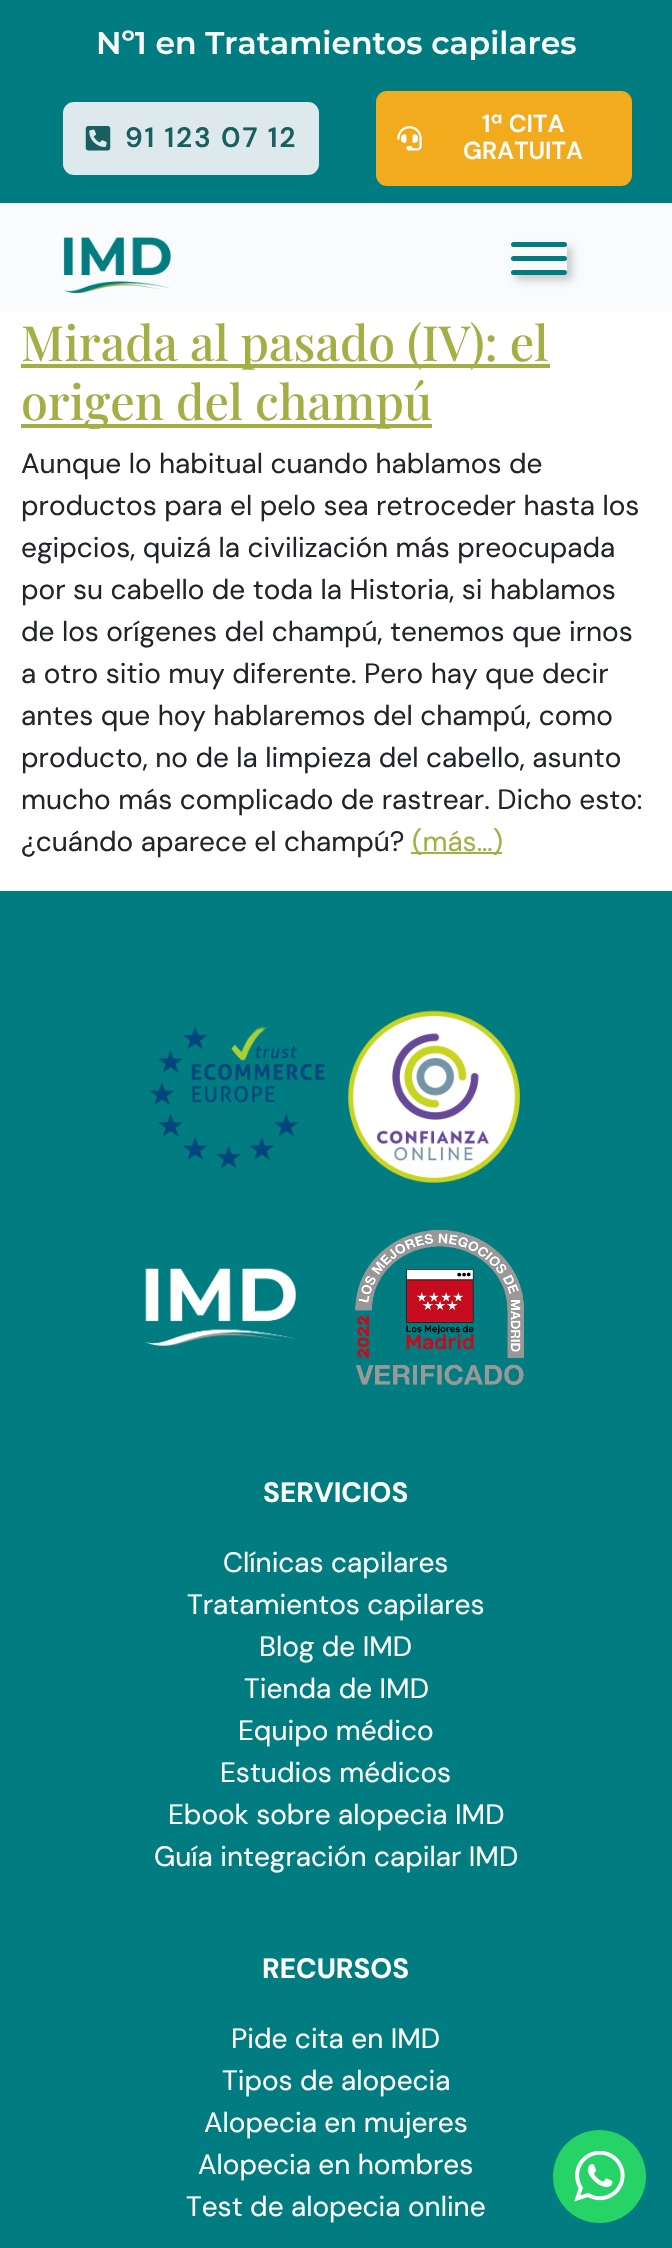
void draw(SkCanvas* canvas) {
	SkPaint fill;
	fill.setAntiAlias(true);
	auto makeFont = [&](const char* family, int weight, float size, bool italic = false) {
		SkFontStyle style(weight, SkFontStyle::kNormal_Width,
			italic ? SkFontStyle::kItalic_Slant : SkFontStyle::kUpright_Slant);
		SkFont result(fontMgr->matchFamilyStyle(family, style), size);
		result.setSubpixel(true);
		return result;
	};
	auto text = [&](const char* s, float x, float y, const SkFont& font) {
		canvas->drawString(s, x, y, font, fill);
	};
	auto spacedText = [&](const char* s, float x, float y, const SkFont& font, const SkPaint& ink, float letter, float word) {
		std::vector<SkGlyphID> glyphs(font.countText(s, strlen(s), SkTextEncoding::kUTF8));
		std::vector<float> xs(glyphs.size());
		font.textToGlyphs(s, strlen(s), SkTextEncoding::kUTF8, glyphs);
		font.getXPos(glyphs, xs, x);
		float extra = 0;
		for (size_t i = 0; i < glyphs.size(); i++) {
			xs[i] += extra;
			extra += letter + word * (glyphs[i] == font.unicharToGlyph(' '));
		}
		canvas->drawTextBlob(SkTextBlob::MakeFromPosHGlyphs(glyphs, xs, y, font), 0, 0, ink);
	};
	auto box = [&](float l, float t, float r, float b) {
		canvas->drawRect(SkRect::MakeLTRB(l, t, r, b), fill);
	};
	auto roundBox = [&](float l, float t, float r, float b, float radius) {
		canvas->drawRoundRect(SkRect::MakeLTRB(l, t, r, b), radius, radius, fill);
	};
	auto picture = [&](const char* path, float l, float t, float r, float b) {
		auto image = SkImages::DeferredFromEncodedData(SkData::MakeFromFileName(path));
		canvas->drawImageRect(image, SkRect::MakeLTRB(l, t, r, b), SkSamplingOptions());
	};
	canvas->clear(0xFFFFFFFF);
	fill.setColor(0xFF017C80);
	box(0, 0, 672, 203);
	fill.setColor(0xFFDDE9EC);
	roundBox(63, 102, 319, 175, 11);
	picture("image0.png", 85, 126, 111, 151);
	fill.setColor(0xFFF2AB1D);
	roundBox(376, 91, 632, 186, 11);
	picture("image1.png", 397, 126, 422, 151);
	fill.setColor(0xFFF9FBFC);
	box(0, 203, 672, 312);
	picture("image2.png", 63, 237, 171, 294);
	canvas->save();
	canvas->clipPath(SkPathBuilder(SkPathFillType::kEvenOdd).moveTo(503, 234).lineTo(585, 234).lineTo(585, 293).lineTo(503, 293).close().moveTo(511, 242).lineTo(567, 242).lineTo(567, 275).lineTo(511, 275).close().detach(), true);
	fill.setColor(0x33000000);
	fill.setMaskFilter(SkMaskFilter::MakeBlur(kNormal_SkBlurStyle, 4));
	canvas->drawRect(SkRect::MakeLTRB(516, 247, 572, 280), fill);
	fill.setMaskFilter(nullptr);
	canvas->restore();
	fill.setColor(0xFF017C80);
	roundBox(511, 242, 567, 247, 2.5f);
	roundBox(511, 256, 567, 261, 2.5f);
	roundBox(511, 270, 567, 275, 2.5f);
	fill.setColor(0xFFA3AE45);
	box(21, 364, 550, 368);
	box(21, 424, 432, 428);
	box(411, 852, 502, 854);
	fill.setColor(0xFF017C80);
	box(0, 891, 672, 2248);
	picture("image3.png", 150, 1010, 520, 1183);
	picture("image4.png", 145, 1268, 296, 1346);
	picture("image5.png", 355, 1229, 524, 1386);
	fill.setColor(0xFF25D366);
	canvas->drawCircle(599.5f, 2176.5f, 46.5f, fill);
	picture("image6.png", 574, 2151, 625, 2202);
	auto font1 = makeFont("Montserrat", 600, 31.5f);
	fill.setColor(0xFFF9FBFC);
	text("Nº1 en Tratamientos capilares", 96, 54, font1);
	auto font2 = makeFont("DM Sans", 600, 28);
	fill.setColor(0xFF195F5F);
	spacedText("91 123 07 12", 125, 147, font2, fill, 1.75f, 0);
	auto font3 = makeFont("DM Sans", 600, 24.5f);
	fill.setColor(0xFFF9FBFC);
	text("1ª CITA", 482, 132, font3);
	text("GRATUITA", 463, 159, font3);
	auto font4 = makeFont("Playfair Display", 500, 48.5f);
	fill.setColor(0xFFA3AE45);
	text("Mirada al pasado (IV): el", 21, 361, font4);
	text("origen del champú", 21, 420, font4);
	auto font5 = makeFont("DM Sans", 400, 28);
	fill.setColor(0xFF212529);
	text("Aunque lo habitual cuando hablamos de", 21, 473, font5);
	text("productos para el pelo sea retroceder hasta los", 21, 515, font5);
	text("egipcios, quizá la civilización más preocupada", 21, 557, font5);
	text("por su cabello de toda la Historia, si hablamos", 21, 599, font5);
	text("de los orígenes del champú, tenemos que irnos", 21, 641, font5);
	text("a otro sitio muy diferente. Pero hay que decir", 21, 683, font5);
	text("antes que hoy hablaremos del champú, como", 21, 725, font5);
	text("producto, no de la limpieza del cabello, asunto", 21, 767, font5);
	text("mucho más complicado de rastrear. Dicho esto:", 21, 809, font5);
	text("¿cuándo aparece el champú?", 21, 851, font5);
	fill.setColor(0xFFA3AE45);
	text("(más…)", 412, 851, font5);
	auto font6 = makeFont("DM Sans", 700, 28);
	fill.setColor(0xFFFFFFFF);
	text("SERVICIOS", 263, 1502, font6);
	text("Clínicas capilares", 223, 1572, font5);
	text("Tratamientos capilares", 187, 1614, font5);
	text("Blog de IMD", 259, 1656, font5);
	text("Tienda de IMD", 244, 1698, font5);
	text("Equipo médico", 238, 1740, font5);
	text("Estudios médicos", 220, 1782, font5);
	text("Ebook sobre alopecia IMD", 168, 1824, font5);
	text("Guía integración capilar IMD", 154, 1866, font5);
	text("RECURSOS", 262, 1978, font6);
	text("Pide cita en IMD", 231, 2048, font5);
	text("Tipos de alopecia", 222, 2090, font5);
	text("Alopecia en mujeres", 204, 2132, font5);
	text("Alopecia en hombres", 198, 2174, font5);
	text("Test de alopecia online", 186, 2216, font5);
}
